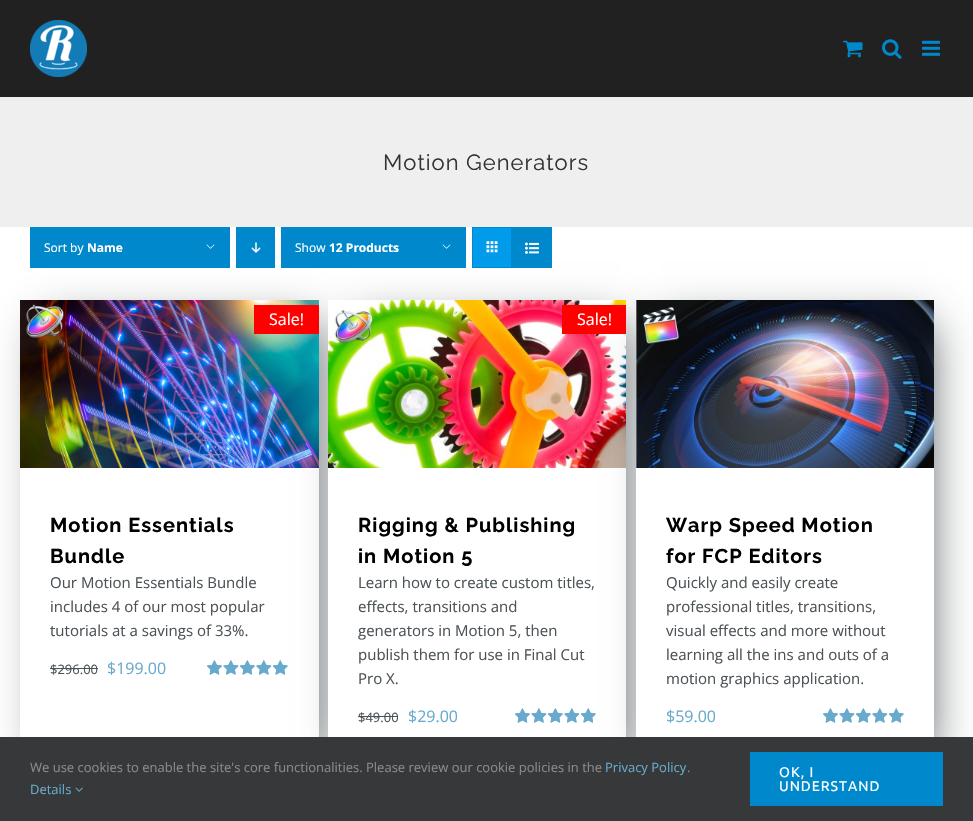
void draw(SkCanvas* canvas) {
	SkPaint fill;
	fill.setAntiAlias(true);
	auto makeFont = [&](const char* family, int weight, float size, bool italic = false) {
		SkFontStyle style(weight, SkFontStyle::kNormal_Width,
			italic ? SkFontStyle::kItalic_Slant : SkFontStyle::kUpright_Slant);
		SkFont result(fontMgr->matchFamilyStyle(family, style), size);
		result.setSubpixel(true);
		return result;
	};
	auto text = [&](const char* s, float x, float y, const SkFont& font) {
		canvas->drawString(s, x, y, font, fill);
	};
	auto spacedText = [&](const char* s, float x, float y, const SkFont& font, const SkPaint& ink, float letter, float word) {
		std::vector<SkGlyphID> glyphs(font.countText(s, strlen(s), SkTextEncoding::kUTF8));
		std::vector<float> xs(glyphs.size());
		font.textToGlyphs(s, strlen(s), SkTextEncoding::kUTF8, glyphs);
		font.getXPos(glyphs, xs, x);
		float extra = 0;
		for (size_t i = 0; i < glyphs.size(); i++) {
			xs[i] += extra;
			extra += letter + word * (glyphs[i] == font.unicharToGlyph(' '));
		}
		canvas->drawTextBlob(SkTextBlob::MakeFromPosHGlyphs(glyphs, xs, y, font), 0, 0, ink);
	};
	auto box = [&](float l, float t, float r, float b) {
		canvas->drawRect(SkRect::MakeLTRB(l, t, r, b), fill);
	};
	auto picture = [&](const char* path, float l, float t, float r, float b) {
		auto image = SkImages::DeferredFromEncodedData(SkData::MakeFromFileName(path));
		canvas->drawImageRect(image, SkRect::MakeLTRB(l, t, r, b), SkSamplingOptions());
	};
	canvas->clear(0xFFFFFFFF);
	fill.setColor(0xFF212121);
	box(0, 0, 973, 97);
	picture("image0.png", 30, 20, 87, 77);
	picture("image1.png", 843, 40, 863, 58);
	picture("image2.png", 882, 39, 902, 59);
	picture("image3.png", 922, 40, 940, 56);
	fill.setColor(0xFFEFEFEF);
	box(0, 97, 973, 227);
	fill.setColor(0xFF0088CC);
	box(236, 227, 275, 268);
	canvas->save();
	canvas->clipPath(SkPathBuilder(SkPathFillType::kEvenOdd).moveTo(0, 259).lineTo(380, 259).lineTo(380, 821).lineTo(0, 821).close().moveTo(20, 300).lineTo(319, 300).lineTo(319, 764).lineTo(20, 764).close().detach(), true);
	fill.setColor(0xFF4C5357);
	fill.setMaskFilter(SkMaskFilter::MakeBlur(kNormal_SkBlurStyle, 21.5f));
	canvas->drawRect(SkRect::MakeLTRB(45, 325, 314, 759), fill);
	fill.setMaskFilter(nullptr);
	canvas->restore();
	fill.setColor(0xFF0088CC);
	box(30, 227, 230, 268);
	picture("image4.png", 206, 244, 215, 249);
	picture("image5.png", 251, 242, 261, 253);
	fill.setStyle(SkPaint::kStroke_Style);
	fill.setStrokeWidth(1);
	canvas->drawRect(SkRect::MakeLTRB(472.5f, 227.5f, 551.5f, 267.5f), fill);
	fill.setStyle(SkPaint::kFill_Style);
	fill.setColor(0xFF009CEB);
	box(473, 228, 511, 267);
	fill.setColor(0xFF0088CC);
	box(511, 228, 551, 267);
	picture("image8.png", 20, 300, 319, 468);
	picture("image9.png", 207, 660, 288, 675);
	picture("image10.png", 207, 660, 288, 675);
	fill.setColor(0xFF4C5357);
	fill.setMaskFilter(SkMaskFilter::MakeBlur(kNormal_SkBlurStyle, 21.5f));
	canvas->drawRect(SkRect::MakeLTRB(353, 325, 621, 759), fill);
	fill.setMaskFilter(nullptr);
	fill.setColor(0xFF0088CC);
	box(281, 227, 466, 268);
	picture("image4.png", 442, 244, 451, 249);
	picture("image6.png", 486, 241, 498, 253);
	picture("image7.png", 525, 242, 539, 254);
	fill.setColor(0xFFFF0000);
	box(254, 305, 319, 334);
	fill.setColor(0xFF4C5357);
	box(50, 668, 98, 669);
	fill.setColor(0xFFFFFFFF);
	box(328, 468, 626, 737);
	picture("image11.png", 328, 300, 626, 468);
	picture("image9.png", 515, 708, 596, 723);
	picture("image10.png", 515, 708, 596, 723);
	fill.setColor(0xFF4C5357);
	fill.setMaskFilter(SkMaskFilter::MakeBlur(kNormal_SkBlurStyle, 21.5f));
	canvas->drawRect(SkRect::MakeLTRB(661, 325, 929, 759), fill);
	fill.setMaskFilter(nullptr);
	fill.setColor(0xFFFF0000);
	box(562, 305, 626, 334);
	fill.setColor(0xFF4C5357);
	box(358, 716, 398, 717);
	fill.setColor(0xFFFFFFFF);
	box(636, 468, 934, 737);
	picture("image12.png", 636, 300, 934, 468);
	picture("image9.png", 823, 708, 904, 723);
	picture("image10.png", 823, 708, 904, 723);
	fill.setColor(0xFF363839);
	box(0, 737, 973, 821);
	picture("image13.png", 75, 787, 83, 792);
	fill.setColor(0xFF0088CC);
	box(750, 752, 943, 806);
	auto font1 = makeFont("Raleway", 100, 22);
	fill.setColor(0xFF333333);
	spacedText("Motion Generators", 383, 170, font1, fill, 1, 0);
	auto font2 = makeFont("Open Sans", 400, 12);
	fill.setColor(0xFFFFFFFF);
	text("Sort by", 44, 252, font2);
	auto font3 = makeFont("Open Sans", 700, 12);
	text("Name", 87, 252, font3);
	text("Show", 295, 252, font2);
	text("12 Products", 329, 252, font3);
	auto font4 = makeFont("Open Sans", 400, 16);
	text("Sale!", 269, 325, font4);
	auto font5 = makeFont("Raleway", 700, 20);
	fill.setColor(0xFF000000);
	spacedText("Motion Essentials", 50, 532, font5, fill, 1, 0);
	spacedText("Bundle", 50, 563, font5, fill, 1, 0);
	auto font6 = makeFont("Open Sans", 400, 15);
	fill.setColor(0xFF4C5357);
	text("Our Motion Essentials Bundle", 50, 588, font6);
	text("includes 4 of our most popular", 50, 612, font6);
	text("tutorials at a savings of 33%.", 50, 636, font6);
	auto font7 = makeFont("Open Sans", 400, 13);
	text("$296.00", 50, 674, font7);
	fill.setColor(0xFF68AACC);
	text("$199.00", 107, 674, font4);
	fill.setColor(0xFFFFFFFF);
	text("Sale!", 577, 325, font4);
	fill.setColor(0xFF000000);
	spacedText("Rigging & Publishing", 358, 532, font5, fill, 1, 0);
	spacedText("in Motion 5", 358, 563, font5, fill, 1, 0);
	fill.setColor(0xFF4C5357);
	text("Learn how to create custom titles,", 358, 588, font6);
	text("effects, transitions and", 358, 612, font6);
	text("generators in Motion 5, then", 358, 636, font6);
	text("publish them for use in Final Cut", 358, 660, font6);
	text("Pro X.", 358, 684, font6);
	text("$49.00", 358, 722, font7);
	fill.setColor(0xFF68AACC);
	text("$29.00", 408, 722, font4);
	fill.setColor(0xFF000000);
	spacedText("Warp Speed Motion", 666, 532, font5, fill, 1, 0);
	spacedText("for FCP Editors", 666, 563, font5, fill, 1, 0);
	fill.setColor(0xFF4C5357);
	text("Quickly and easily create", 666, 588, font6);
	text("professional titles, transitions,", 666, 612, font6);
	text("visual effects and more without", 666, 636, font6);
	text("learning all the ins and outs of a", 666, 660, font6);
	text("motion graphics application.", 666, 684, font6);
	fill.setColor(0xFF68AACC);
	text("$59.00", 666, 722, font4);
	fill.setColor(0xFF8C8989);
	text("We use cookies to enable the site's core functionalities. Please review our cookie policies in the", 30, 772, font7);
	fill.setColor(0xFF68AACC);
	text("Privacy Policy", 605, 772, font7);
	fill.setColor(0xFF8C8989);
	text(".", 687, 772, font7);
	fill.setColor(0xFF68AACC);
	text("Details", 30, 794, font7);
	auto font8 = makeFont("Ubuntu", 400, 14);
	fill.setColor(0xFFFFFFFF);
	spacedText("OK, I", 779, 777, font8, fill, 1, 0);
	spacedText("UNDERSTAND", 779, 791, font8, fill, 1, 0);
}
